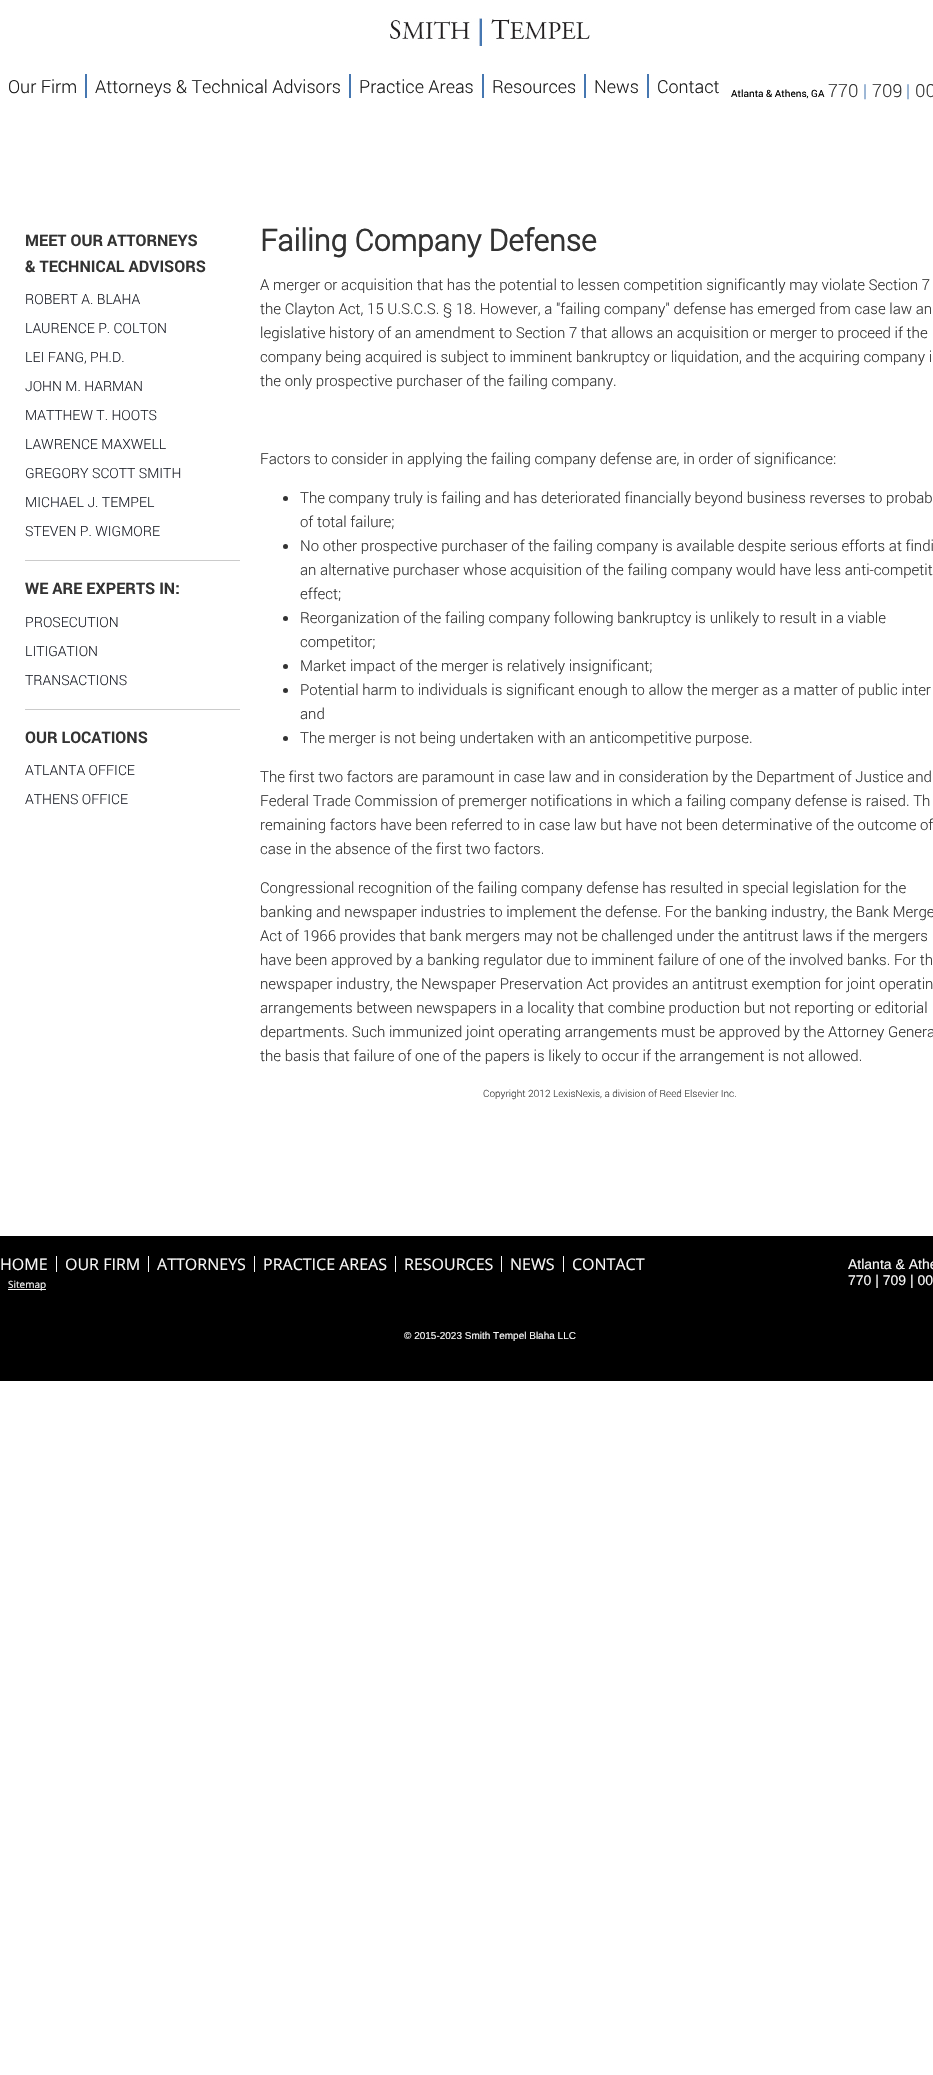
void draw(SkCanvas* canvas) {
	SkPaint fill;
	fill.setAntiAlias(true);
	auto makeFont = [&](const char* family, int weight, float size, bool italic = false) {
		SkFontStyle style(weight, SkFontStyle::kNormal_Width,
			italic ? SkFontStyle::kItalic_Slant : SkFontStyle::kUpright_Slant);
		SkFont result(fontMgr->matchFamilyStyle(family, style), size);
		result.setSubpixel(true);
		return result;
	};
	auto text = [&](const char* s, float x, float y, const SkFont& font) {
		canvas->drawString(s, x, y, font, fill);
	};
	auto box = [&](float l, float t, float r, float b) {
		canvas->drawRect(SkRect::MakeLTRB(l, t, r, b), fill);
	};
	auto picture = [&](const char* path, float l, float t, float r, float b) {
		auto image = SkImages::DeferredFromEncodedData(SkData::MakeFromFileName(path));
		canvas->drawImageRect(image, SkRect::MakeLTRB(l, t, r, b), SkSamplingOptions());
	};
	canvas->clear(0xFFFFFFFF);
	picture("image0.png", 390, 18, 590, 46);
	fill.setColor(0xFF4677B1);
	box(85, 74, 87, 98);
	box(349, 74, 351, 98);
	box(482, 74, 484, 98);
	box(584, 74, 586, 98);
	box(647, 74, 649, 98);
	fill.setColor(0xFFCBCBCB);
	box(25, 560, 240, 561);
	box(25, 709, 240, 710);
	fill.setColor(0xFF333333);
	canvas->drawCircle(285.5f, 498.5f, 2.5f, fill);
	canvas->drawCircle(285.5f, 546.5f, 2.5f, fill);
	canvas->drawCircle(285.5f, 618.5f, 2.5f, fill);
	canvas->drawCircle(285.5f, 666.5f, 2.5f, fill);
	canvas->drawCircle(285.5f, 690.5f, 2.5f, fill);
	canvas->drawCircle(285.5f, 738.5f, 2.5f, fill);
	fill.setColor(0xFF000000);
	box(0, 1236, 933, 1381);
	fill.setColor(0xFFF8F8F8);
	box(56, 1256, 57, 1272);
	box(148, 1256, 149, 1272);
	box(254, 1256, 255, 1272);
	box(395, 1256, 396, 1272);
	box(501, 1256, 502, 1272);
	box(563, 1256, 564, 1272);
	box(8, 1289, 46, 1290);
	auto font1 = makeFont("Roboto", 300, 18);
	fill.setColor(0xFF1A1A1A);
	text("Our Firm", 8, 93, font1);
	text("Attorneys & Technical Advisors", 95, 93, font1);
	text("Practice Areas", 359, 93, font1);
	text("Resources", 492, 93, font1);
	text("News", 594, 93, font1);
	text("Contact", 657, 93, font1);
	auto font2 = makeFont("roboto", 400, 10);
	fill.setColor(0xFF000000);
	text("Atlanta & Athens, GA", 731, 97, font2);
	fill.setColor(0xFF333333);
	text("770", 828, 97, font1);
	fill.setColor(0xFF4677B1);
	text("|", 863, 97, font1);
	fill.setColor(0xFF333333);
	text("709", 872, 97, font1);
	fill.setColor(0xFF4677B1);
	text("|", 906, 97, font1);
	fill.setColor(0xFF333333);
	text("00", 915, 97, font1);
	auto font3 = makeFont("roboto", 700, 16);
	text("MEET OUR ATTORNEYS", 25, 246, font3);
	text("& TECHNICAL ADVISORS", 25, 272, font3);
	auto font4 = makeFont("Roboto", 300, 14);
	fill.setColor(0xFF1E212A);
	text("ROBERT A. BLAHA", 25, 304, font4);
	text("LAURENCE P. COLTON", 25, 333, font4);
	text("LEI FANG, PH.D.", 25, 362, font4);
	text("JOHN M. HARMAN", 25, 391, font4);
	text("MATTHEW T. HOOTS", 25, 420, font4);
	text("LAWRENCE MAXWELL", 25, 449, font4);
	text("GREGORY SCOTT SMITH", 25, 478, font4);
	text("MICHAEL J. TEMPEL", 25, 507, font4);
	text("STEVEN P. WIGMORE", 25, 536, font4);
	fill.setColor(0xFF333333);
	text("WE ARE EXPERTS IN:", 25, 594, font3);
	fill.setColor(0xFF1E212A);
	text("PROSECUTION", 25, 627, font4);
	text("LITIGATION", 25, 656, font4);
	text("TRANSACTIONS", 25, 685, font4);
	fill.setColor(0xFF333333);
	text("OUR LOCATIONS", 25, 743, font3);
	fill.setColor(0xFF1E212A);
	text("ATLANTA OFFICE", 25, 775, font4);
	text("ATHENS OFFICE", 25, 804, font4);
	auto font5 = makeFont("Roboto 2", 700, 30);
	fill.setColor(0xFF333333);
	text("Failing Company Defense", 260, 251, font5);
	auto font6 = makeFont("Roboto", 300, 15);
	text("A merger or acquisition that has the potential to lessen competition significantly may violate Section 7", 260, 290, font6);
	text("the Clayton Act, 15 U.S.C.S. § 18. However, a \"failing company\" defense has emerged from case law an", 260, 314, font6);
	text("legislative history of an amendment to Section 7 that allows an acquisition or merger to proceed if the", 260, 338, font6);
	text("company being acquired is subject to imminent bankruptcy or liquidation, and the acquiring company i", 260, 362, font6);
	text("the only prospective purchaser of the failing company.", 260, 386, font6);
	text("Factors to consider in applying the failing company defense are, in order of significance:", 260, 464, font6);
	text("The company truly is failing and has deteriorated financially beyond business reverses to probab", 300, 503, font6);
	text("of total failure;", 300, 527, font6);
	text("No other prospective purchaser of the failing company is available despite serious efforts at findi", 300, 551, font6);
	text("an alternative purchaser whose acquisition of the failing company would have less anti-competit", 300, 575, font6);
	text("effect;", 300, 599, font6);
	text("Reorganization of the failing company following bankruptcy is unlikely to result in a viable", 300, 623, font6);
	text("competitor;", 300, 647, font6);
	text("Market impact of the merger is relatively insignificant;", 300, 671, font6);
	text("Potential harm to individuals is significant enough to allow the merger as a matter of public inter", 300, 695, font6);
	text("and", 300, 719, font6);
	text("The merger is not being undertaken with an anticompetitive purpose.", 300, 743, font6);
	text("The first two factors are paramount in case law and in consideration by the Department of Justice and", 260, 782, font6);
	text("Federal Trade Commission of premerger notifications in which a failing company defense is raised. Th", 260, 806, font6);
	text("remaining factors have been referred to in case law but have not been determinative of the outcome of", 260, 830, font6);
	text("case in the absence of the first two factors.", 260, 854, font6);
	text("Congressional recognition of the failing company defense has resulted in special legislation for the", 260, 893, font6);
	text("banking and newspaper industries to implement the defense. For the banking industry, the Bank Merge", 260, 917, font6);
	text("Act of 1966 provides that bank mergers may not be challenged under the antitrust laws if the mergers", 260, 941, font6);
	text("have been approved by a banking regulator due to imminent failure of one of the involved banks. For th", 260, 965, font6);
	text("newspaper industry, the Newspaper Preservation Act provides an antitrust exemption for joint operatin", 260, 989, font6);
	text("arrangements between newspapers in a locality that combine production but not reporting or editorial", 260, 1013, font6);
	text("departments. Such immunized joint operating arrangements must be approved by the Attorney Genera", 260, 1037, font6);
	text("the basis that failure of one of the papers is likely to occur if the arrangement is not allowed.", 260, 1061, font6);
	auto font7 = makeFont("Roboto", 300, 10);
	text("Copyright 2012 LexisNexis, a division of Reed Elsevier Inc.", 483, 1097, font7);
	auto font8 = makeFont("Open Sans", 400, 16);
	fill.setColor(0xFFF8F8F8);
	text("HOME", 0, 1270, font8);
	text("OUR FIRM", 65, 1270, font8);
	text("ATTORNEYS", 157, 1270, font8);
	text("PRACTICE AREAS", 263, 1270, font8);
	text("RESOURCES", 404, 1270, font8);
	text("NEWS", 510, 1270, font8);
	text("CONTACT", 572, 1270, font8);
	auto font9 = makeFont("Liberation Sans", 400, 14);
	text("Atlanta & Athe", 848, 1269, font9);
	text("770 | 709 | 00", 848, 1285, font9);
	auto font10 = makeFont("Open Sans", 400, 10);
	text("Sitemap", 8, 1288, font10);
	auto font11 = makeFont("Liberation Sans", 400, 10);
	text("© 2015-2023 Smith Tempel Blaha LLC", 404, 1339, font11);
}
